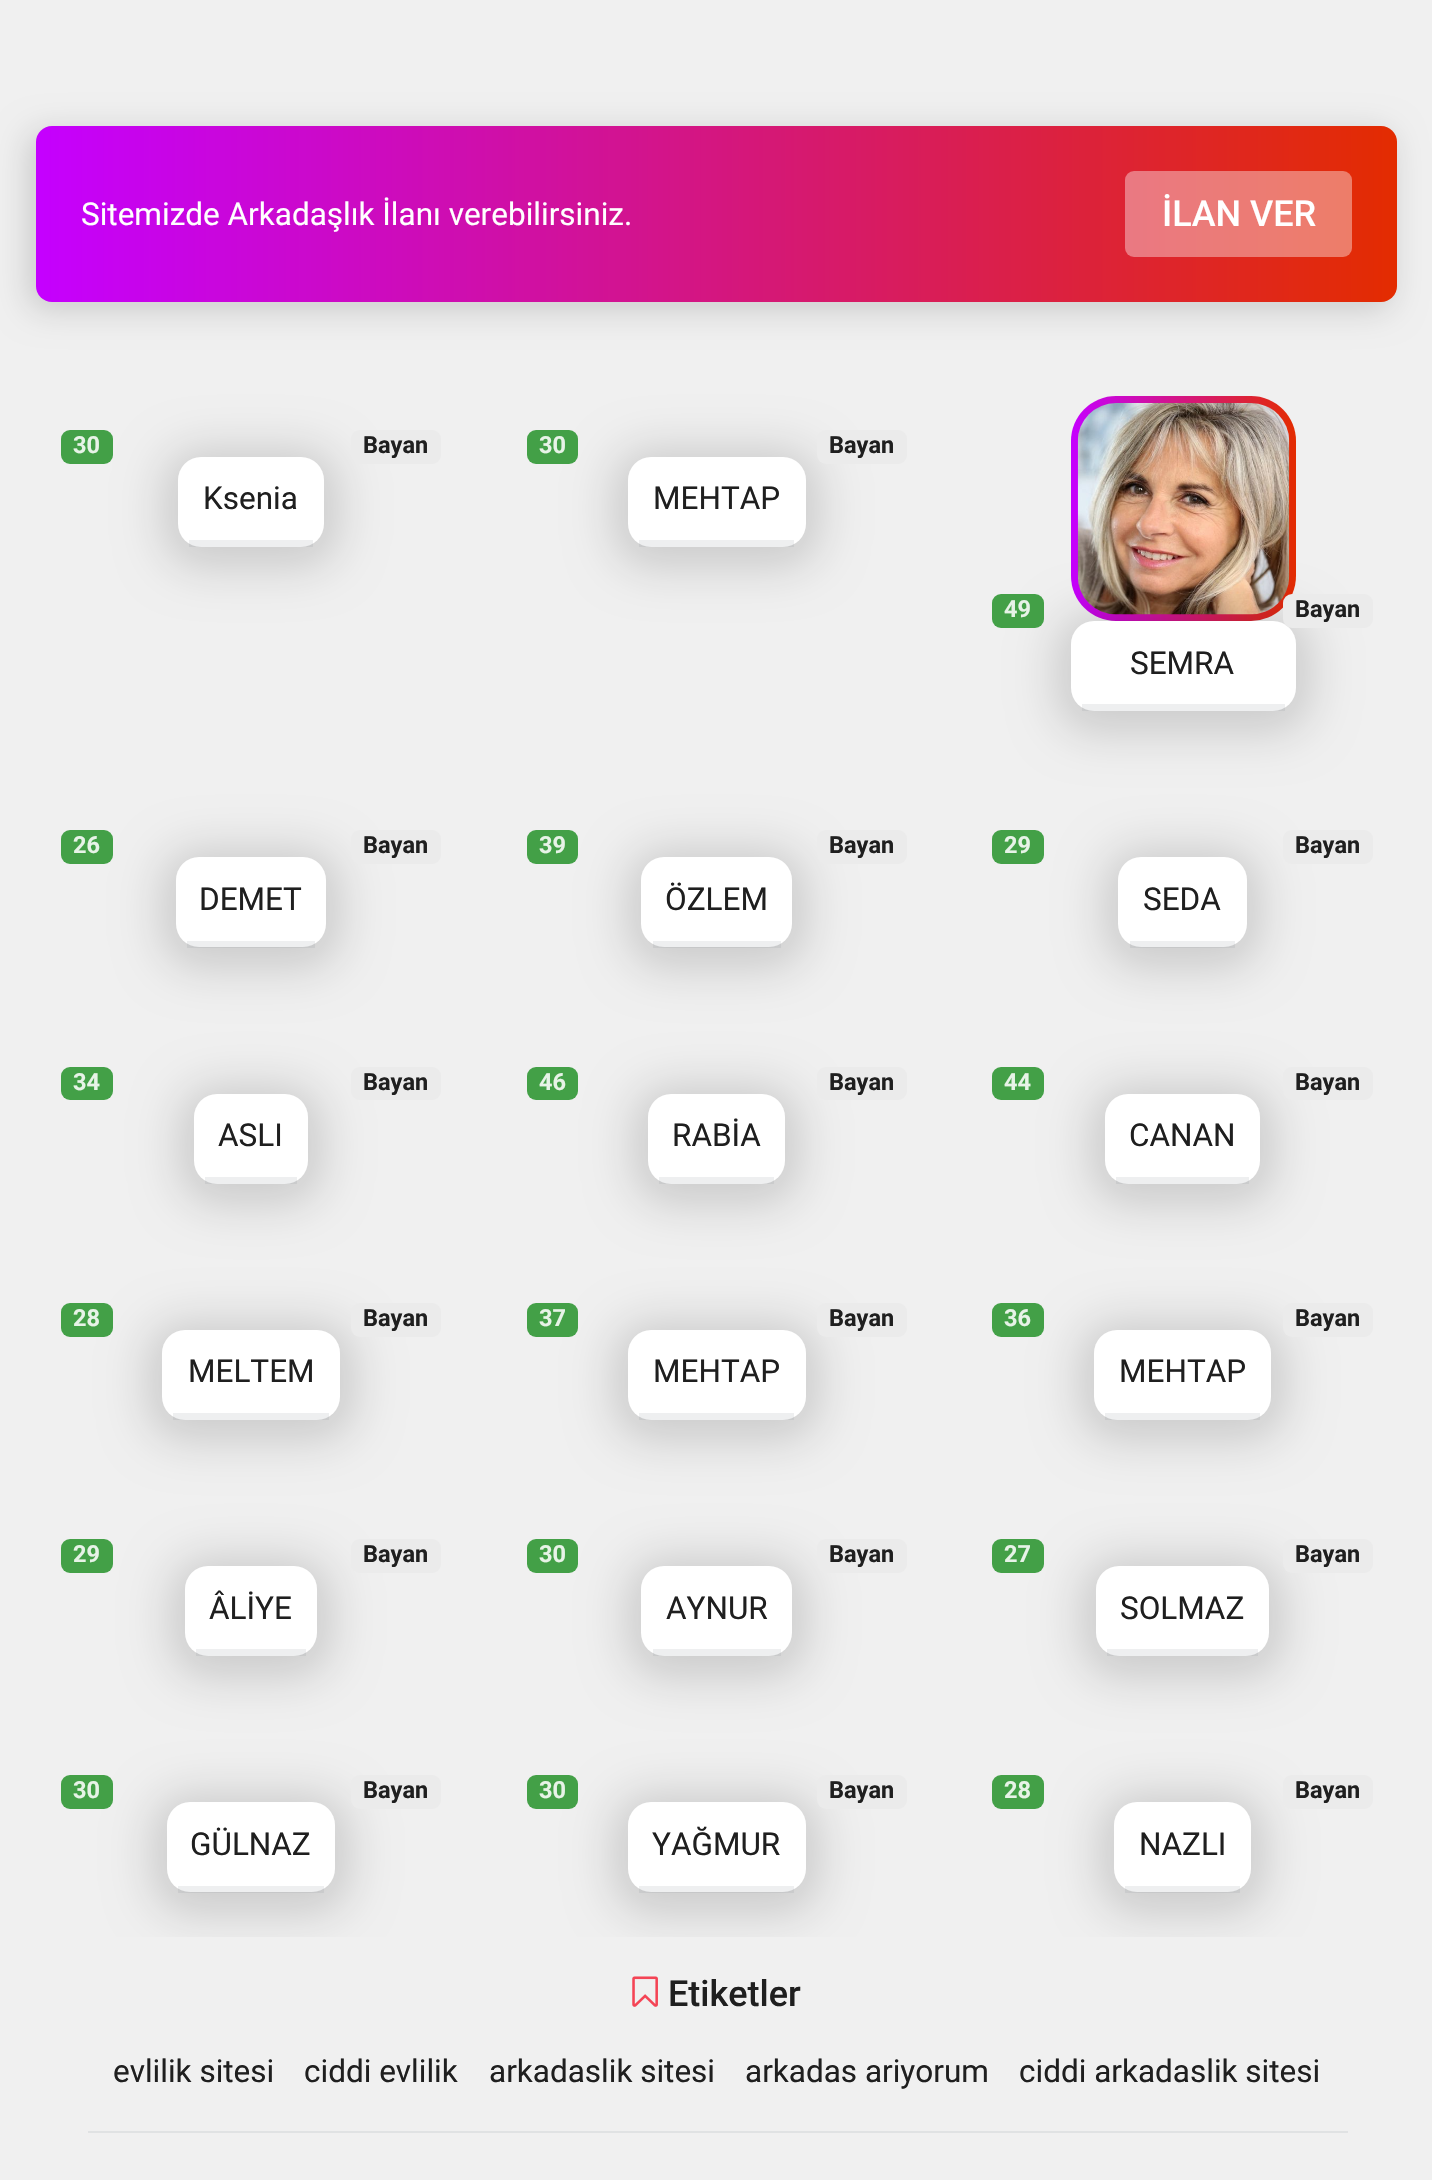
void draw(SkCanvas* canvas) {
	SkPaint fill;
	fill.setAntiAlias(true);
	auto makeFont = [&](const char* family, int weight, float size, bool italic = false) {
		SkFontStyle style(weight, SkFontStyle::kNormal_Width,
			italic ? SkFontStyle::kItalic_Slant : SkFontStyle::kUpright_Slant);
		SkFont result(fontMgr->matchFamilyStyle(family, style), size);
		result.setSubpixel(true);
		return result;
	};
	auto text = [&](const char* s, float x, float y, const SkFont& font) {
		canvas->drawString(s, x, y, font, fill);
	};
	auto box = [&](float l, float t, float r, float b) {
		canvas->drawRect(SkRect::MakeLTRB(l, t, r, b), fill);
	};
	auto roundBox = [&](float l, float t, float r, float b, float radius) {
		canvas->drawRoundRect(SkRect::MakeLTRB(l, t, r, b), radius, radius, fill);
	};
	auto picture = [&](const char* path, float l, float t, float r, float b) {
		auto image = SkImages::DeferredFromEncodedData(SkData::MakeFromFileName(path));
		canvas->drawImageRect(image, SkRect::MakeLTRB(l, t, r, b), SkSamplingOptions());
	};
	canvas->clear(0xFFF0F0F0);
	fill.setColor(0x26000000);
	fill.setMaskFilter(SkMaskFilter::MakeBlur(kNormal_SkBlurStyle, 16));
	canvas->drawRoundRect(SkRect::MakeLTRB(27, 131, 1393, 311), 18, 18, fill);
	fill.setMaskFilter(nullptr);
	{
		const SkColor colors[] = {0xFFC500FF, 0xFFE32C00};
		const float stops[] = {0, 1};
		const SkPoint ends[] = {{36, 214}, {1397, 214}};
		fill.setShader(SkGradientShader::MakeLinear(ends, colors, stops, 2, SkTileMode::kClamp));
		fill.setAlpha(255);
	}
	roundBox(36, 126, 1397, 302, 16);
	fill.setShader(nullptr);
	fill.setColor(0x63FFFFFF);
	roundBox(1125, 171, 1352, 257, 9);
	fill.setColor(0x26000000);
	fill.setMaskFilter(SkMaskFilter::MakeBlur(kNormal_SkBlurStyle, 22.5f));
	canvas->drawRoundRect(SkRect::MakeLTRB(162, 448, 340, 569), 38, 38, fill);
	fill.setMaskFilter(nullptr);
	fill.setColor(0xFF43A047);
	roundBox(61, 430, 113, 464, 9);
	fill.setColor(0xFFEBEBEB);
	roundBox(351, 430, 441, 464, 9);
	fill.setColor(0xFFFFFFFF);
	roundBox(178, 457, 324, 547, 23);
	fill.setColor(0x2178828C);
	box(189, 540, 313, 547);
	fill.setColor(0x26000000);
	fill.setMaskFilter(SkMaskFilter::MakeBlur(kNormal_SkBlurStyle, 22.5f));
	canvas->drawRoundRect(SkRect::MakeLTRB(612, 448, 821, 569), 38, 38, fill);
	fill.setMaskFilter(nullptr);
	fill.setColor(0xFF43A047);
	roundBox(527, 430, 578, 464, 9);
	fill.setColor(0xFFEBEBEB);
	roundBox(817, 430, 907, 464, 9);
	fill.setColor(0xFFFFFFFF);
	roundBox(628, 457, 806, 547, 23);
	fill.setColor(0x2178828C);
	box(639, 540, 794, 547);
	{
		const SkColor colors[] = {0xFFC500FF, 0xFFE32C00};
		const float stops[] = {0, 1};
		const SkPoint ends[] = {{1071, 509}, {1296, 509}};
		fill.setShader(SkGradientShader::MakeLinear(ends, colors, stops, 2, SkTileMode::kClamp));
		fill.setAlpha(255);
	}
	roundBox(1071, 396, 1296, 621, 45);
	picture("image0.png", 1077, 403, 1290, 615);
	fill.setShader(nullptr);
	fill.setColor(0x26000000);
	fill.setMaskFilter(SkMaskFilter::MakeBlur(kNormal_SkBlurStyle, 22.5f));
	canvas->drawRoundRect(SkRect::MakeLTRB(1055, 612, 1312, 734), 38, 38, fill);
	fill.setMaskFilter(nullptr);
	fill.setColor(0xFF43A047);
	roundBox(992, 594, 1044, 628, 9);
	fill.setColor(0xFFFFFFFF);
	roundBox(1071, 621, 1296, 711, 23);
	fill.setColor(0xFFEBEBEB);
	roundBox(1283, 594, 1373, 628, 9);
	fill.setColor(0x2178828C);
	box(1082, 704, 1285, 711);
	fill.setColor(0x26000000);
	fill.setMaskFilter(SkMaskFilter::MakeBlur(kNormal_SkBlurStyle, 22.5f));
	canvas->drawRoundRect(SkRect::MakeLTRB(160, 848, 342, 970), 38, 38, fill);
	fill.setMaskFilter(nullptr);
	fill.setColor(0xFF43A047);
	roundBox(61, 830, 113, 864, 9);
	fill.setColor(0xFFEBEBEB);
	roundBox(351, 830, 441, 864, 9);
	fill.setColor(0xFFFFFFFF);
	roundBox(176, 857, 326, 947, 23);
	fill.setColor(0x2178828C);
	box(187, 941, 315, 948);
	fill.setColor(0x26000000);
	fill.setMaskFilter(SkMaskFilter::MakeBlur(kNormal_SkBlurStyle, 22.5f));
	canvas->drawRoundRect(SkRect::MakeLTRB(626, 848, 808, 970), 38, 38, fill);
	fill.setMaskFilter(nullptr);
	fill.setColor(0xFF43A047);
	roundBox(527, 830, 578, 864, 9);
	fill.setColor(0xFFEBEBEB);
	roundBox(817, 830, 907, 864, 9);
	fill.setColor(0xFFFFFFFF);
	roundBox(641, 857, 792, 947, 23);
	fill.setColor(0x2178828C);
	box(653, 941, 781, 948);
	fill.setColor(0x26000000);
	fill.setMaskFilter(SkMaskFilter::MakeBlur(kNormal_SkBlurStyle, 22.5f));
	canvas->drawRoundRect(SkRect::MakeLTRB(1103, 848, 1262, 970), 38, 38, fill);
	fill.setMaskFilter(nullptr);
	fill.setColor(0xFF43A047);
	roundBox(992, 830, 1044, 864, 9);
	fill.setColor(0xFFEBEBEB);
	roundBox(1283, 830, 1373, 864, 9);
	fill.setColor(0xFFFFFFFF);
	roundBox(1118, 857, 1247, 947, 23);
	fill.setColor(0x2178828C);
	box(1130, 941, 1235, 948);
	fill.setColor(0x26000000);
	fill.setMaskFilter(SkMaskFilter::MakeBlur(kNormal_SkBlurStyle, 22.5f));
	canvas->drawRoundRect(SkRect::MakeLTRB(178, 1085, 324, 1206), 38, 38, fill);
	fill.setMaskFilter(nullptr);
	fill.setColor(0xFF43A047);
	roundBox(61, 1067, 113, 1100, 9);
	fill.setColor(0xFFEBEBEB);
	roundBox(351, 1067, 441, 1100, 9);
	fill.setColor(0xFFFFFFFF);
	roundBox(194, 1094, 308, 1184, 23);
	fill.setColor(0x2178828C);
	box(205, 1177, 297, 1184);
	fill.setColor(0x26000000);
	fill.setMaskFilter(SkMaskFilter::MakeBlur(kNormal_SkBlurStyle, 22.5f));
	canvas->drawRoundRect(SkRect::MakeLTRB(632, 1085, 801, 1206), 38, 38, fill);
	fill.setMaskFilter(nullptr);
	fill.setColor(0xFF43A047);
	roundBox(527, 1067, 578, 1100, 9);
	fill.setColor(0xFFEBEBEB);
	roundBox(817, 1067, 907, 1100, 9);
	fill.setColor(0xFFFFFFFF);
	roundBox(648, 1094, 785, 1184, 23);
	fill.setColor(0x2178828C);
	box(659, 1177, 774, 1184);
	fill.setColor(0x26000000);
	fill.setMaskFilter(SkMaskFilter::MakeBlur(kNormal_SkBlurStyle, 22.5f));
	canvas->drawRoundRect(SkRect::MakeLTRB(1089, 1085, 1276, 1206), 38, 38, fill);
	fill.setMaskFilter(nullptr);
	fill.setColor(0xFF43A047);
	roundBox(992, 1067, 1044, 1100, 9);
	fill.setColor(0xFFEBEBEB);
	roundBox(1283, 1067, 1373, 1100, 9);
	fill.setColor(0xFFFFFFFF);
	roundBox(1105, 1094, 1260, 1184, 23);
	fill.setColor(0x2178828C);
	box(1116, 1177, 1249, 1184);
	fill.setColor(0x26000000);
	fill.setMaskFilter(SkMaskFilter::MakeBlur(kNormal_SkBlurStyle, 22.5f));
	canvas->drawRoundRect(SkRect::MakeLTRB(146, 1321, 356, 1442), 38, 38, fill);
	fill.setMaskFilter(nullptr);
	fill.setColor(0xFF43A047);
	roundBox(61, 1303, 113, 1337, 9);
	fill.setColor(0xFFEBEBEB);
	roundBox(351, 1303, 441, 1337, 9);
	fill.setColor(0xFFFFFFFF);
	roundBox(162, 1330, 340, 1420, 23);
	fill.setColor(0x2178828C);
	box(173, 1413, 329, 1420);
	fill.setColor(0x26000000);
	fill.setMaskFilter(SkMaskFilter::MakeBlur(kNormal_SkBlurStyle, 22.5f));
	canvas->drawRoundRect(SkRect::MakeLTRB(612, 1321, 821, 1442), 38, 38, fill);
	fill.setMaskFilter(nullptr);
	fill.setColor(0xFF43A047);
	roundBox(527, 1303, 578, 1337, 9);
	fill.setColor(0xFFEBEBEB);
	roundBox(817, 1303, 907, 1337, 9);
	fill.setColor(0xFFFFFFFF);
	roundBox(628, 1330, 806, 1420, 23);
	fill.setColor(0x2178828C);
	box(639, 1413, 794, 1420);
	fill.setColor(0x26000000);
	fill.setMaskFilter(SkMaskFilter::MakeBlur(kNormal_SkBlurStyle, 22.5f));
	canvas->drawRoundRect(SkRect::MakeLTRB(1078, 1321, 1287, 1442), 38, 38, fill);
	fill.setMaskFilter(nullptr);
	fill.setColor(0xFF43A047);
	roundBox(992, 1303, 1044, 1337, 9);
	fill.setColor(0xFFEBEBEB);
	roundBox(1283, 1303, 1373, 1337, 9);
	fill.setColor(0xFFFFFFFF);
	roundBox(1094, 1330, 1271, 1420, 23);
	fill.setColor(0x2178828C);
	box(1105, 1413, 1260, 1420);
	fill.setColor(0x26000000);
	fill.setMaskFilter(SkMaskFilter::MakeBlur(kNormal_SkBlurStyle, 22.5f));
	canvas->drawRoundRect(SkRect::MakeLTRB(169, 1557, 333, 1679), 38, 38, fill);
	fill.setMaskFilter(nullptr);
	fill.setColor(0xFF43A047);
	roundBox(61, 1539, 113, 1573, 9);
	fill.setColor(0xFFEBEBEB);
	roundBox(351, 1539, 441, 1573, 9);
	fill.setColor(0xFFFFFFFF);
	roundBox(185, 1566, 317, 1656, 23);
	fill.setColor(0x2178828C);
	box(196, 1649, 306, 1656);
	fill.setColor(0x26000000);
	fill.setMaskFilter(SkMaskFilter::MakeBlur(kNormal_SkBlurStyle, 22.5f));
	canvas->drawRoundRect(SkRect::MakeLTRB(626, 1557, 808, 1679), 38, 38, fill);
	fill.setMaskFilter(nullptr);
	fill.setColor(0xFF43A047);
	roundBox(527, 1539, 578, 1573, 9);
	fill.setColor(0xFFEBEBEB);
	roundBox(817, 1539, 907, 1573, 9);
	fill.setColor(0xFFFFFFFF);
	roundBox(641, 1566, 792, 1656, 23);
	fill.setColor(0x2178828C);
	box(653, 1649, 781, 1656);
	fill.setColor(0x26000000);
	fill.setMaskFilter(SkMaskFilter::MakeBlur(kNormal_SkBlurStyle, 22.5f));
	canvas->drawRoundRect(SkRect::MakeLTRB(1080, 1557, 1285, 1679), 38, 38, fill);
	fill.setMaskFilter(nullptr);
	fill.setColor(0xFF43A047);
	roundBox(992, 1539, 1044, 1573, 9);
	fill.setColor(0xFFEBEBEB);
	roundBox(1283, 1539, 1373, 1573, 9);
	fill.setColor(0xFFFFFFFF);
	roundBox(1096, 1566, 1269, 1656, 23);
	fill.setColor(0x2178828C);
	box(1107, 1649, 1258, 1656);
	canvas->save();
	canvas->clipRect(SkRect::MakeLTRB(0, 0, 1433, 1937));
	fill.setColor(0x26000000);
	fill.setMaskFilter(SkMaskFilter::MakeBlur(kNormal_SkBlurStyle, 22.5f));
	canvas->drawRoundRect(SkRect::MakeLTRB(151, 1793, 351, 1915), 38, 38, fill);
	fill.setMaskFilter(nullptr);
	canvas->restore();
	fill.setColor(0xFF43A047);
	roundBox(61, 1775, 113, 1809, 9);
	fill.setColor(0xFFEBEBEB);
	roundBox(351, 1775, 441, 1809, 9);
	fill.setColor(0xFFFFFFFF);
	roundBox(167, 1802, 335, 1892, 23);
	fill.setColor(0x2178828C);
	box(178, 1886, 324, 1893);
	canvas->save();
	canvas->clipRect(SkRect::MakeLTRB(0, 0, 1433, 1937));
	fill.setColor(0x26000000);
	fill.setMaskFilter(SkMaskFilter::MakeBlur(kNormal_SkBlurStyle, 22.5f));
	canvas->drawRoundRect(SkRect::MakeLTRB(612, 1793, 821, 1915), 38, 38, fill);
	fill.setMaskFilter(nullptr);
	canvas->restore();
	fill.setColor(0xFF43A047);
	roundBox(527, 1775, 578, 1809, 9);
	fill.setColor(0xFFEBEBEB);
	roundBox(817, 1775, 907, 1809, 9);
	fill.setColor(0xFFFFFFFF);
	roundBox(628, 1802, 806, 1892, 23);
	fill.setColor(0x2178828C);
	box(639, 1886, 794, 1893);
	canvas->save();
	canvas->clipRect(SkRect::MakeLTRB(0, 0, 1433, 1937));
	fill.setColor(0x26000000);
	fill.setMaskFilter(SkMaskFilter::MakeBlur(kNormal_SkBlurStyle, 22.5f));
	canvas->drawRoundRect(SkRect::MakeLTRB(1098, 1793, 1267, 1915), 38, 38, fill);
	fill.setMaskFilter(nullptr);
	canvas->restore();
	fill.setColor(0xFF43A047);
	roundBox(992, 1775, 1044, 1809, 9);
	fill.setColor(0xFFEBEBEB);
	roundBox(1283, 1775, 1373, 1809, 9);
	fill.setColor(0xFFFFFFFF);
	roundBox(1114, 1802, 1251, 1892, 23);
	fill.setColor(0x2178828C);
	box(1125, 1886, 1240, 1893);
	picture("image1.png", 632, 1976, 658, 2007);
	fill.setColor(0xFFE0E2E3);
	box(88, 2131, 1348, 2133);
	auto font1 = makeFont("Roboto", 400, 31.5f);
	fill.setColor(0xFFFFFFFF);
	text("Sitemizde Arkadaşlık İlanı verebilirsiniz.", 81, 225, font1);
	auto font2 = makeFont("Roboto", 500, 36);
	text("İLAN VER", 1162, 226, font2);
	auto font3 = makeFont("Roboto", 700, 23.5f);
	fill.setColor(0xFFE7F3E7);
	text("30", 73, 453, font3);
	fill.setColor(0xFF1F1F1F);
	text("Bayan", 363, 453, font3);
	text("Ksenia", 203, 509, font1);
	fill.setColor(0xFFE7F3E7);
	text("30", 539, 453, font3);
	fill.setColor(0xFF1F1F1F);
	text("Bayan", 829, 453, font3);
	text("MEHTAP", 653, 509, font1);
	fill.setColor(0xFFE7F3E7);
	text("49", 1004, 617, font3);
	fill.setColor(0xFF1F1F1F);
	text("Bayan", 1295, 617, font3);
	text("SEMRA", 1130, 674, font1);
	fill.setColor(0xFFE7F3E7);
	text("26", 73, 853, font3);
	fill.setColor(0xFF1F1F1F);
	text("Bayan", 363, 853, font3);
	text("DEMET", 199, 910, font1);
	fill.setColor(0xFFE7F3E7);
	text("39", 539, 853, font3);
	fill.setColor(0xFF1F1F1F);
	text("Bayan", 829, 853, font3);
	text("ÖZLEM", 665, 910, font1);
	fill.setColor(0xFFE7F3E7);
	text("29", 1004, 853, font3);
	fill.setColor(0xFF1F1F1F);
	text("Bayan", 1295, 853, font3);
	text("SEDA", 1143, 910, font1);
	fill.setColor(0xFFE7F3E7);
	text("34", 73, 1090, font3);
	fill.setColor(0xFF1F1F1F);
	text("Bayan", 363, 1090, font3);
	text("ASLI", 218, 1146, font1);
	fill.setColor(0xFFE7F3E7);
	text("46", 539, 1090, font3);
	fill.setColor(0xFF1F1F1F);
	text("Bayan", 829, 1090, font3);
	text("RABİA", 672, 1146, font1);
	fill.setColor(0xFFE7F3E7);
	text("44", 1004, 1090, font3);
	fill.setColor(0xFF1F1F1F);
	text("Bayan", 1295, 1090, font3);
	text("CANAN", 1129, 1146, font1);
	fill.setColor(0xFFE7F3E7);
	text("28", 73, 1326, font3);
	fill.setColor(0xFF1F1F1F);
	text("Bayan", 363, 1326, font3);
	text("MELTEM", 188, 1382, font1);
	fill.setColor(0xFFE7F3E7);
	text("37", 539, 1326, font3);
	fill.setColor(0xFF1F1F1F);
	text("Bayan", 829, 1326, font3);
	text("MEHTAP", 653, 1382, font1);
	fill.setColor(0xFFE7F3E7);
	text("36", 1004, 1326, font3);
	fill.setColor(0xFF1F1F1F);
	text("Bayan", 1295, 1326, font3);
	text("MEHTAP", 1119, 1382, font1);
	fill.setColor(0xFFE7F3E7);
	text("29", 73, 1562, font3);
	fill.setColor(0xFF1F1F1F);
	text("Bayan", 363, 1562, font3);
	text("ÂLİYE", 209, 1619, font1);
	fill.setColor(0xFFE7F3E7);
	text("30", 539, 1562, font3);
	fill.setColor(0xFF1F1F1F);
	text("Bayan", 829, 1562, font3);
	text("AYNUR", 666, 1619, font1);
	fill.setColor(0xFFE7F3E7);
	text("27", 1004, 1562, font3);
	fill.setColor(0xFF1F1F1F);
	text("Bayan", 1295, 1562, font3);
	text("SOLMAZ", 1120, 1619, font1);
	fill.setColor(0xFFE7F3E7);
	text("30", 73, 1798, font3);
	fill.setColor(0xFF1F1F1F);
	text("Bayan", 363, 1798, font3);
	text("GÜLNAZ", 190, 1855, font1);
	fill.setColor(0xFFE7F3E7);
	text("30", 539, 1798, font3);
	fill.setColor(0xFF1F1F1F);
	text("Bayan", 829, 1798, font3);
	text("YAĞMUR", 652, 1855, font1);
	fill.setColor(0xFFE7F3E7);
	text("28", 1004, 1798, font3);
	fill.setColor(0xFF1F1F1F);
	text("Bayan", 1295, 1798, font3);
	text("NAZLI", 1139, 1855, font1);
	text("Etiketler", 668, 2006, font2);
	text("evlilik sitesi", 113, 2082, font1);
	text("ciddi evlilik", 304, 2082, font1);
	text("arkadaslik sitesi", 489, 2082, font1);
	text("arkadas ariyorum", 745, 2082, font1);
	text("ciddi arkadaslik sitesi", 1019, 2082, font1);
}
